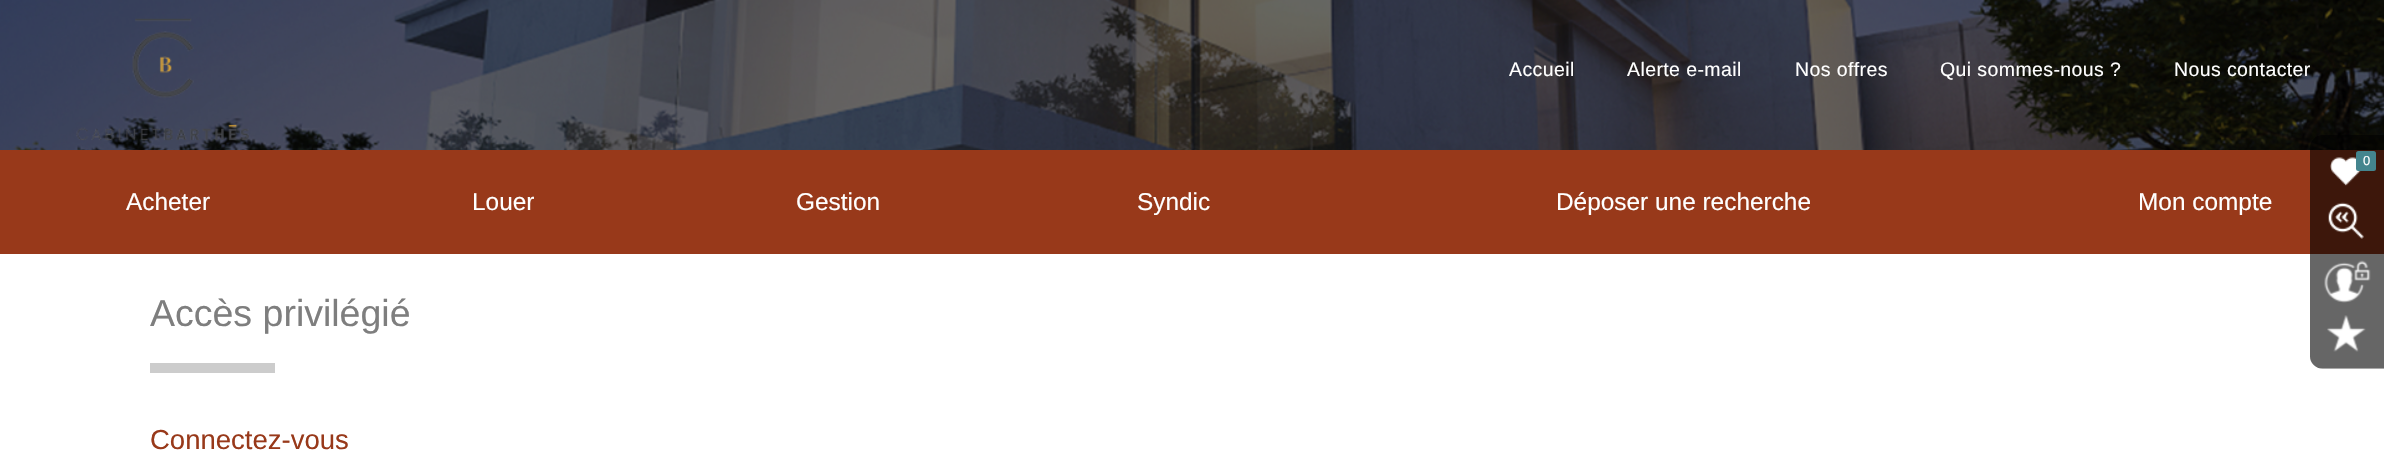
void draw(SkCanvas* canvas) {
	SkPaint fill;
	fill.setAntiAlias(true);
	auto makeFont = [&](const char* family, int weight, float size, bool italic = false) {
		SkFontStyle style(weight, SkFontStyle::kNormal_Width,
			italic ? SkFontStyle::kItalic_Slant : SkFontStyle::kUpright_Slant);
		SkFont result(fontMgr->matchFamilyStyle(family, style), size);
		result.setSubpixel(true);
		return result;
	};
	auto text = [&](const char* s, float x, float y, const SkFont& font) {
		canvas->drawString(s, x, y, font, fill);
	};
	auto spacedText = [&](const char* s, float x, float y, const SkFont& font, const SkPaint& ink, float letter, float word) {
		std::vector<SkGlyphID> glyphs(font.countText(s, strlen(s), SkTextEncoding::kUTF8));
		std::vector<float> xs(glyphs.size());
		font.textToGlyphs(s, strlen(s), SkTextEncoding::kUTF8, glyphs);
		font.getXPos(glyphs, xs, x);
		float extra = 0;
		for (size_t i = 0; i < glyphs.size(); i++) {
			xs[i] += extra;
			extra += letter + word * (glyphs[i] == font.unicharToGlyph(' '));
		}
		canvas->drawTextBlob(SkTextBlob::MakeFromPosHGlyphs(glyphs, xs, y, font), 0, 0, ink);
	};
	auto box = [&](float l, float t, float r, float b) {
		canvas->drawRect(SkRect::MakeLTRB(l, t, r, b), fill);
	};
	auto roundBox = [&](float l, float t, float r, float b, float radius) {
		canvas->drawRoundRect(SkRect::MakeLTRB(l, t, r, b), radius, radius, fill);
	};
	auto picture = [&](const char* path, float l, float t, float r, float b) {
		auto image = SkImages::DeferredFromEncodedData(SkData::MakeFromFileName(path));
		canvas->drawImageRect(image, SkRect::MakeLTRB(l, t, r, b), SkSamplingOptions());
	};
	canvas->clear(0xFFFFFFFF);
	picture("image0.png", 0, 0, 2384, 150);
	fill.setColor(0x99000000);
	box(0, 0, 2384, 150);
	picture("image1.png", 76, 18, 249, 141);
	fill.setColor(0xFF98391A);
	box(0, 150, 2384, 254);
	picture("image2.png", 2310, 135, 2384, 369);
	picture("image3.png", 2330, 157, 2361, 186);
	fill.setColor(0xFF44858E);
	roundBox(2356, 151, 2376, 171, 2.5f);
	picture("image4.png", 2328, 202, 2364, 239);
	picture("image5.png", 2324, 260, 2371, 303);
	picture("image6.png", 2327, 315, 2366, 352);
	fill.setColor(0xFFCCCCCC);
	box(150, 363, 275, 373);
	auto font1 = makeFont("Liberation Sans", 400, 19.5f);
	fill.setColor(0xFFFFFFFF);
	spacedText("Accueil", 1509, 76, font1, fill, 0.4f, 0);
	spacedText("Alerte e-mail", 1627, 76, font1, fill, 0.4f, 0);
	spacedText("Nos offres", 1795, 76, font1, fill, 0.4f, 0);
	spacedText("Qui sommes-nous ?", 1940, 76, font1, fill, 0.4f, 0);
	spacedText("Nous contacter", 2174, 76, font1, fill, 0.4f, 0);
	auto font2 = makeFont("Liberation Sans", 400, 13);
	text("0", 2363, 165, font2);
	auto font3 = makeFont("Liberation Sans", 400, 24.4f);
	text("Acheter", 126, 210, font3);
	text("Louer", 472, 210, font3);
	text("Gestion", 796, 210, font3);
	text("Syndic", 1137, 210, font3);
	text("Déposer une recherche", 1556, 210, font3);
	text("Mon compte", 2138, 210, font3);
	auto font4 = makeFont("Liberation Sans", 400, 37.5f);
	fill.setColor(0xFF7E7E7E);
	text("Accès privilégié", 150, 326, font4);
	auto font5 = makeFont("Liberation Sans", 400, 27.5f);
	fill.setColor(0xFF98391A);
	text("Connectez-vous", 150, 449, font5);
}
